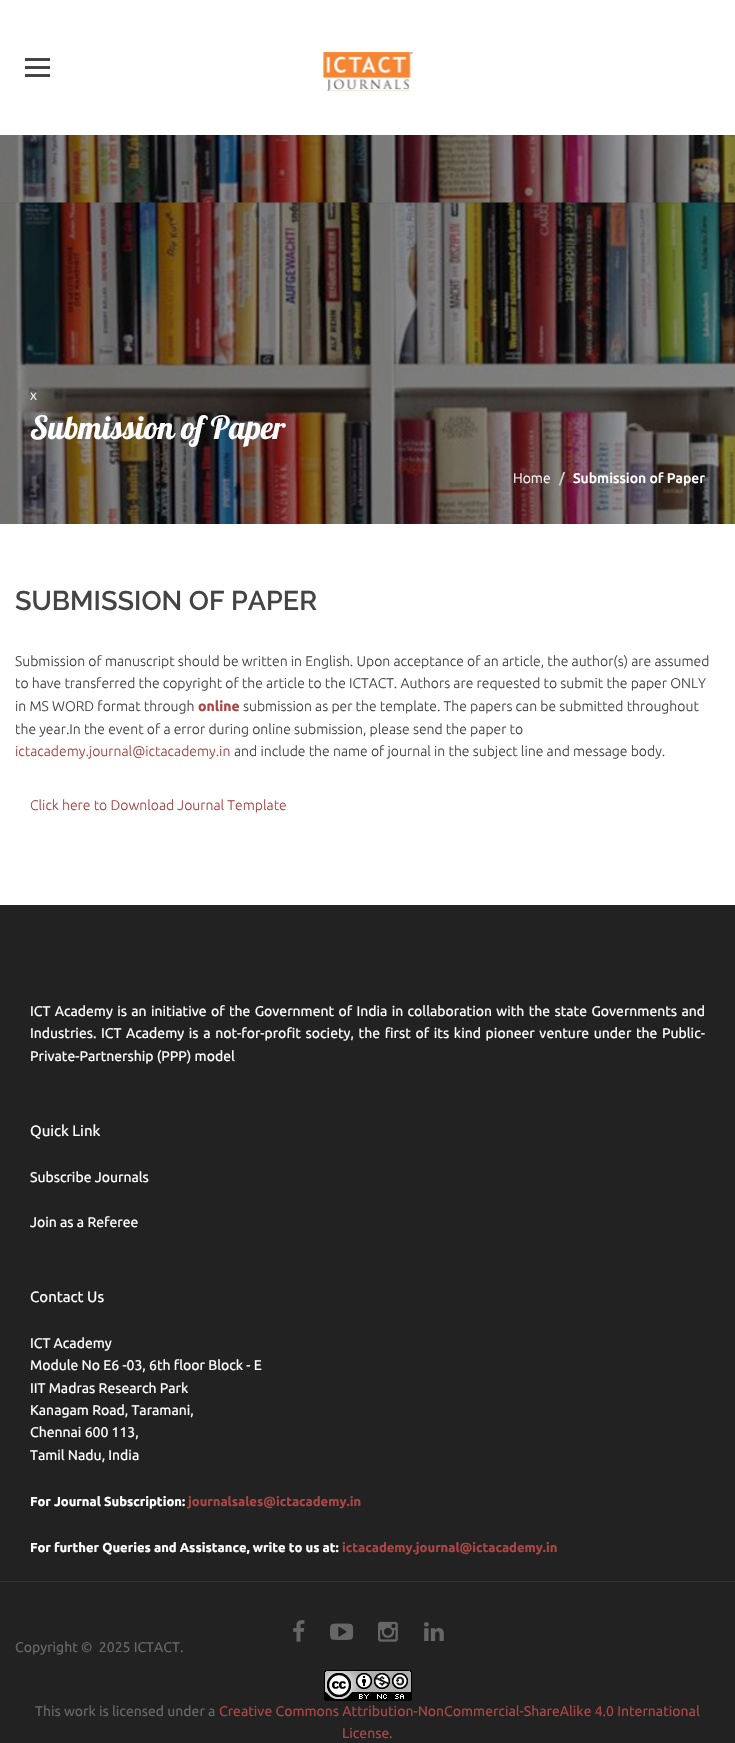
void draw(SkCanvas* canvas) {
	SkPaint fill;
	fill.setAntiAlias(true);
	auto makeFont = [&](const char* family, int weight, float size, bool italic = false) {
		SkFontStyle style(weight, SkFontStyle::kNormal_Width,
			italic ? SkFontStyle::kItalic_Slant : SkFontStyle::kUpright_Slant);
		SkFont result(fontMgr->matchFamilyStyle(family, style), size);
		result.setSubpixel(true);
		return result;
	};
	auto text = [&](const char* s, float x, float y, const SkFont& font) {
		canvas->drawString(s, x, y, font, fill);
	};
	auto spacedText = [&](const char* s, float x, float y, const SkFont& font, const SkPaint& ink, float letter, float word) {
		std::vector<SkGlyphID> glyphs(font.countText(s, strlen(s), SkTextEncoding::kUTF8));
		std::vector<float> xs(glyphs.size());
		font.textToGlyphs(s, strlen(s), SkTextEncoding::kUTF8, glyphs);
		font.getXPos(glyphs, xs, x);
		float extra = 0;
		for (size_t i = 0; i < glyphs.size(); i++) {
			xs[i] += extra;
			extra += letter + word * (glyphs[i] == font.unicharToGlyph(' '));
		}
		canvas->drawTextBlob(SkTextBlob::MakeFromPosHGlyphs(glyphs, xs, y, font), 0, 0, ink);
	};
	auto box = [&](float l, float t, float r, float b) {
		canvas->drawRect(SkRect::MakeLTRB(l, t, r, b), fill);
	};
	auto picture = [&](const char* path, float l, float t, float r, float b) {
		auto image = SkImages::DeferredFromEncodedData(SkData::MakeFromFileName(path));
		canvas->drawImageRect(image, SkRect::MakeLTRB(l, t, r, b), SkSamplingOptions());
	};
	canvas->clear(0xFFFFFFFF);
	fill.setColor(0xFF444444);
	box(25, 58, 50, 61);
	box(25, 66, 50, 69);
	box(25, 74, 50, 77);
	picture("image0.png", 323, 52, 413, 91);
	picture("image1.png", 0, 135, 735, 524);
	fill.setColor(0xFF222222);
	box(0, 905, 735, 1743);
	fill.setColor(0xFF333333);
	box(0, 1581, 735, 1582);
	picture("image2.png", 293, 1620, 305, 1642);
	picture("image3.png", 330, 1623, 354, 1640);
	picture("image4.png", 378, 1621, 398, 1642);
	picture("image5.png", 424, 1622, 444, 1641);
	picture("image6.png", 324, 1670, 412, 1701);
	auto font1 = makeFont("Ubuntu", 300, 14);
	fill.setColor(0xFFFFFFFF);
	text("x", 30, 400, font1);
	auto font2 = makeFont("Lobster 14", 400, 32);
	text("Submission of Paper", 30, 439, font2);
	text("Home", 513, 483, font1);
	auto font3 = makeFont("Ubuntu", 500, 14);
	fill.setColor(0xFFCCCCCC);
	text("/", 559, 483, font3);
	fill.setColor(0xFFFFFFFF);
	text("Submission of Paper", 573, 483, font3);
	auto font4 = makeFont("Raleway", 600, 27);
	fill.setColor(0xFF444444);
	text("SUBMISSION OF PAPER", 15, 610, font4);
	text("Submission of manuscript should be written in English. Upon acceptance of an article, the author(s) are assumed", 15, 666, font1);
	text("to have transferred the copyright of the article to the ICTACT. Authors are requested to submit the paper ONLY", 15, 688, font1);
	text("in MS WORD format through", 15, 711, font1);
	auto font5 = makeFont("Ubuntu", 700, 14);
	fill.setColor(0xFFAA4644);
	text("online", 198, 711, font5);
	fill.setColor(0xFF444444);
	text("submission as per the template. The papers can be submitted throughout", 243, 711, font1);
	text("the year.In the event of a error during online submission, please send the paper to", 15, 734, font1);
	fill.setColor(0xFFAA4644);
	text("ictacademy.journal@ictacademy.in", 15, 756, font1);
	fill.setColor(0xFF444444);
	text("and include the name of journal in the subject line and message body.", 234, 756, font1);
	fill.setColor(0xFFAA4644);
	text("Click here to Download Journal Template", 30, 810, font1);
	auto font6 = makeFont("Ubuntu", 400, 14);
	fill.setColor(0xFFFFFFFF);
	spacedText("ICT Academy is an initiative of the Government of India in collaboration with the state Governments and", 30, 1016, font6, fill, 0, 1.1f);
	spacedText("Industries. ICT Academy is a not-for-profit society, the first of its kind pioneer venture under the Public-", 30, 1038, font6, fill, 0, 1.4f);
	text("Private-Partnership (PPP) model", 30, 1061, font6);
	auto font7 = makeFont("Ubuntu", 400, 15);
	text("Quick Link", 30, 1136, font7);
	text("Subscribe Journals", 30, 1182, font6);
	text("Join as a Referee", 30, 1227, font6);
	text("Contact Us", 30, 1302, font7);
	text("ICT Academy", 30, 1348, font6);
	text("Module No E6 -03, 6th floor Block - E", 30, 1370, font6);
	text("IIT Madras Research Park", 30, 1393, font6);
	text("Kanagam Road, Taramani,", 30, 1415, font6);
	text("Chennai 600 113,", 30, 1437, font6);
	text("Tamil Nadu, India", 30, 1460, font6);
	auto font8 = makeFont("Ubuntu", 700, 13);
	text("For Journal Subscription:", 30, 1506, font8);
	fill.setColor(0xFFAA4644);
	text("journalsales@ictacademy.in", 188, 1506, font8);
	fill.setColor(0xFFFFFFFF);
	text("For further Queries and Assistance, write to us at:", 30, 1552, font8);
	fill.setColor(0xFFAA4644);
	text("ictacademy.journal@ictacademy.in", 342, 1552, font8);
	fill.setColor(0xFF666666);
	text("Copyright ©  2025 ICTACT.", 15, 1652, font6);
	text("This work is licensed under a", 35, 1716, font6);
	fill.setColor(0xFFAA4644);
	text("Creative Commons Attribution-NonCommercial-ShareAlike 4.0 International", 219, 1716, font6);
	text("License", 342, 1738, font6);
	fill.setColor(0xFF666666);
	text(".", 389, 1738, font6);
}
